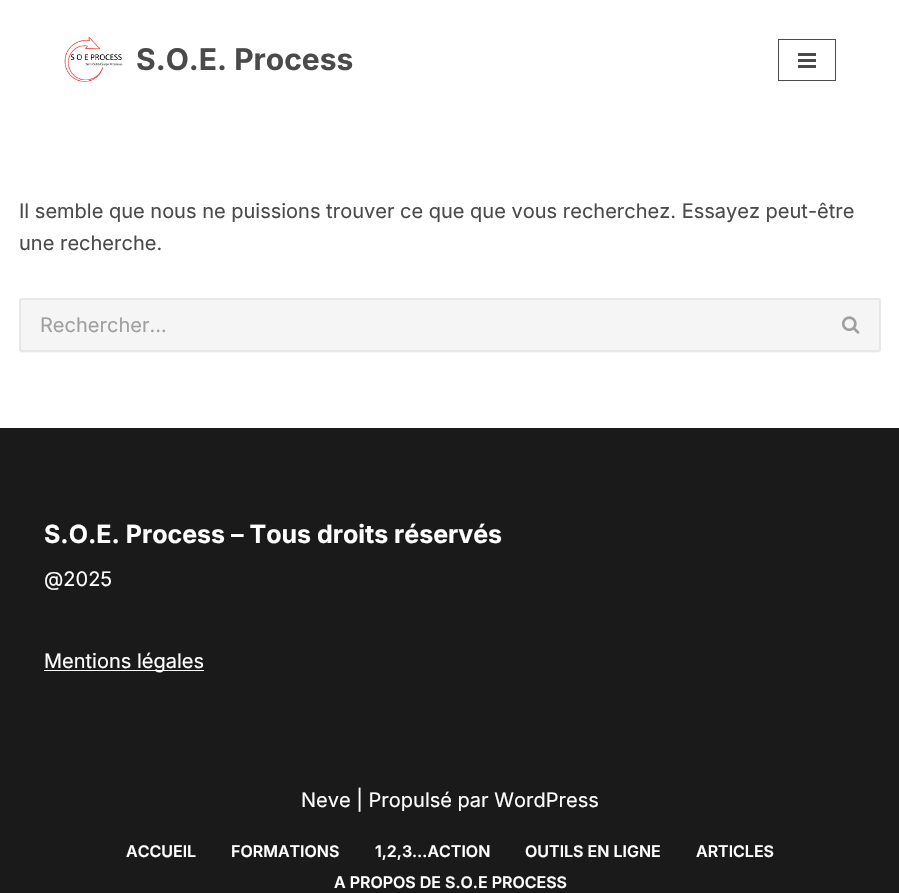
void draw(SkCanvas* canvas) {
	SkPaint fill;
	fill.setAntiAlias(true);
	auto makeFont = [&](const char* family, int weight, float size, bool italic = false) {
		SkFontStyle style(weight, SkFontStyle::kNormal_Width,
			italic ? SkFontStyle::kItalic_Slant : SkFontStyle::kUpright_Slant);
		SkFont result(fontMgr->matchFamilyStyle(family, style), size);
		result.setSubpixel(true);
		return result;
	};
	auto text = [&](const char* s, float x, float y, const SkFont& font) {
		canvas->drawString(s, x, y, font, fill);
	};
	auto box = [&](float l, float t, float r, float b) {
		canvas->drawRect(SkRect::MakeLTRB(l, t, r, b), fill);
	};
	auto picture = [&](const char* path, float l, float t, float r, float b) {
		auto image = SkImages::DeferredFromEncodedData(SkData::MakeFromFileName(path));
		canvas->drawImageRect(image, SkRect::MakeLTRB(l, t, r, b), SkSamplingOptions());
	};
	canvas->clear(0xFFFFFFFF);
	picture("image0.png", 64, 36, 123, 82);
	fill.setStyle(SkPaint::kStroke_Style);
	fill.setStrokeWidth(1);
	fill.setColor(0xFF4A4A4A);
	canvas->drawRect(SkRect::MakeLTRB(778.5f, 39.5f, 835.5f, 80.5f), fill);
	fill.setStyle(SkPaint::kFill_Style);
	box(798, 53, 816, 56);
	box(798, 59, 816, 62);
	box(798, 65, 816, 68);
	fill.setColor(0xFFF5F5F5);
	canvas->drawPath(SkPathBuilder().moveTo(23, 298).lineTo(823, 298).lineTo(823, 353).lineTo(23, 353).cubicTo(21, 353, 19, 351, 19, 349).lineTo(19, 302).cubicTo(19, 300, 21, 298, 23, 298).close().detach(), fill);
	fill.setColor(0xFFE7E7E7);
	canvas->drawPath(SkPathBuilder(SkPathFillType::kEvenOdd).moveTo(22, 298).lineTo(822, 298).lineTo(822, 352).lineTo(22, 352).cubicTo(20, 352, 19, 351, 19, 349).lineTo(19, 301).cubicTo(19, 299, 20, 298, 22, 298).close().moveTo(22, 300).lineTo(822, 300).lineTo(822, 350).lineTo(22, 350).cubicTo(22, 350, 21, 349, 21, 349).lineTo(21, 301).cubicTo(21, 301, 22, 300, 22, 300).close().detach(), fill);
	fill.setColor(0xFFF5F5F5);
	canvas->drawPath(SkPathBuilder().moveTo(823, 298).lineTo(877, 298).cubicTo(879, 298, 881, 300, 881, 302).lineTo(881, 349).cubicTo(881, 351, 879, 353, 877, 353).lineTo(823, 353).close().detach(), fill);
	fill.setColor(0xFFE7E7E7);
	canvas->drawPath(SkPathBuilder(SkPathFillType::kEvenOdd).moveTo(822, 298).lineTo(878, 298).cubicTo(880, 298, 881, 299, 881, 301).lineTo(881, 349).cubicTo(881, 351, 880, 352, 878, 352).lineTo(822, 352).close().moveTo(822, 300).lineTo(878, 300).cubicTo(878, 300, 879, 301, 879, 301).lineTo(879, 349).cubicTo(879, 349, 878, 350, 878, 350).lineTo(822, 350).close().detach(), fill);
	picture("image1.png", 841, 316, 860, 334);
	fill.setColor(0xFF1A1A1A);
	box(0, 428, 899, 893);
	fill.setColor(0xFFFFFFFF);
	box(44, 670, 204, 671);
	auto font1 = makeFont("Inter", 700, 30);
	fill.setColor(0xFF4A4A4A);
	text("S.O.E. Process", 136, 70, font1);
	auto font2 = makeFont("Inter", 400, 20);
	text("Il semble que nous ne puissions trouver ce que que vous recherchez. Essayez peut-être", 19, 218, font2);
	text("une recherche.", 19, 250, font2);
	fill.setColor(0xFFA0A0A0);
	text("Rechercher...", 40, 332, font2);
	auto font3 = makeFont("Inter", 700, 25);
	fill.setColor(0xFFFFFFFF);
	text("S.O.E. Process – Tous droits réservés", 44, 543, font3);
	text("@2025", 44, 586, font2);
	text("Mentions légales", 44, 668, font2);
	text("Neve | Propulsé par WordPress", 301, 807, font2);
	auto font4 = makeFont("Inter", 600, 16);
	text("ACCUEIL", 126, 857, font4);
	text("FORMATIONS", 231, 857, font4);
	text("1,2,3…ACTION", 375, 857, font4);
	text("OUTILS EN LIGNE", 525, 857, font4);
	text("ARTICLES", 696, 857, font4);
	text("A PROPOS DE S.O.E PROCESS", 334, 888, font4);
}
